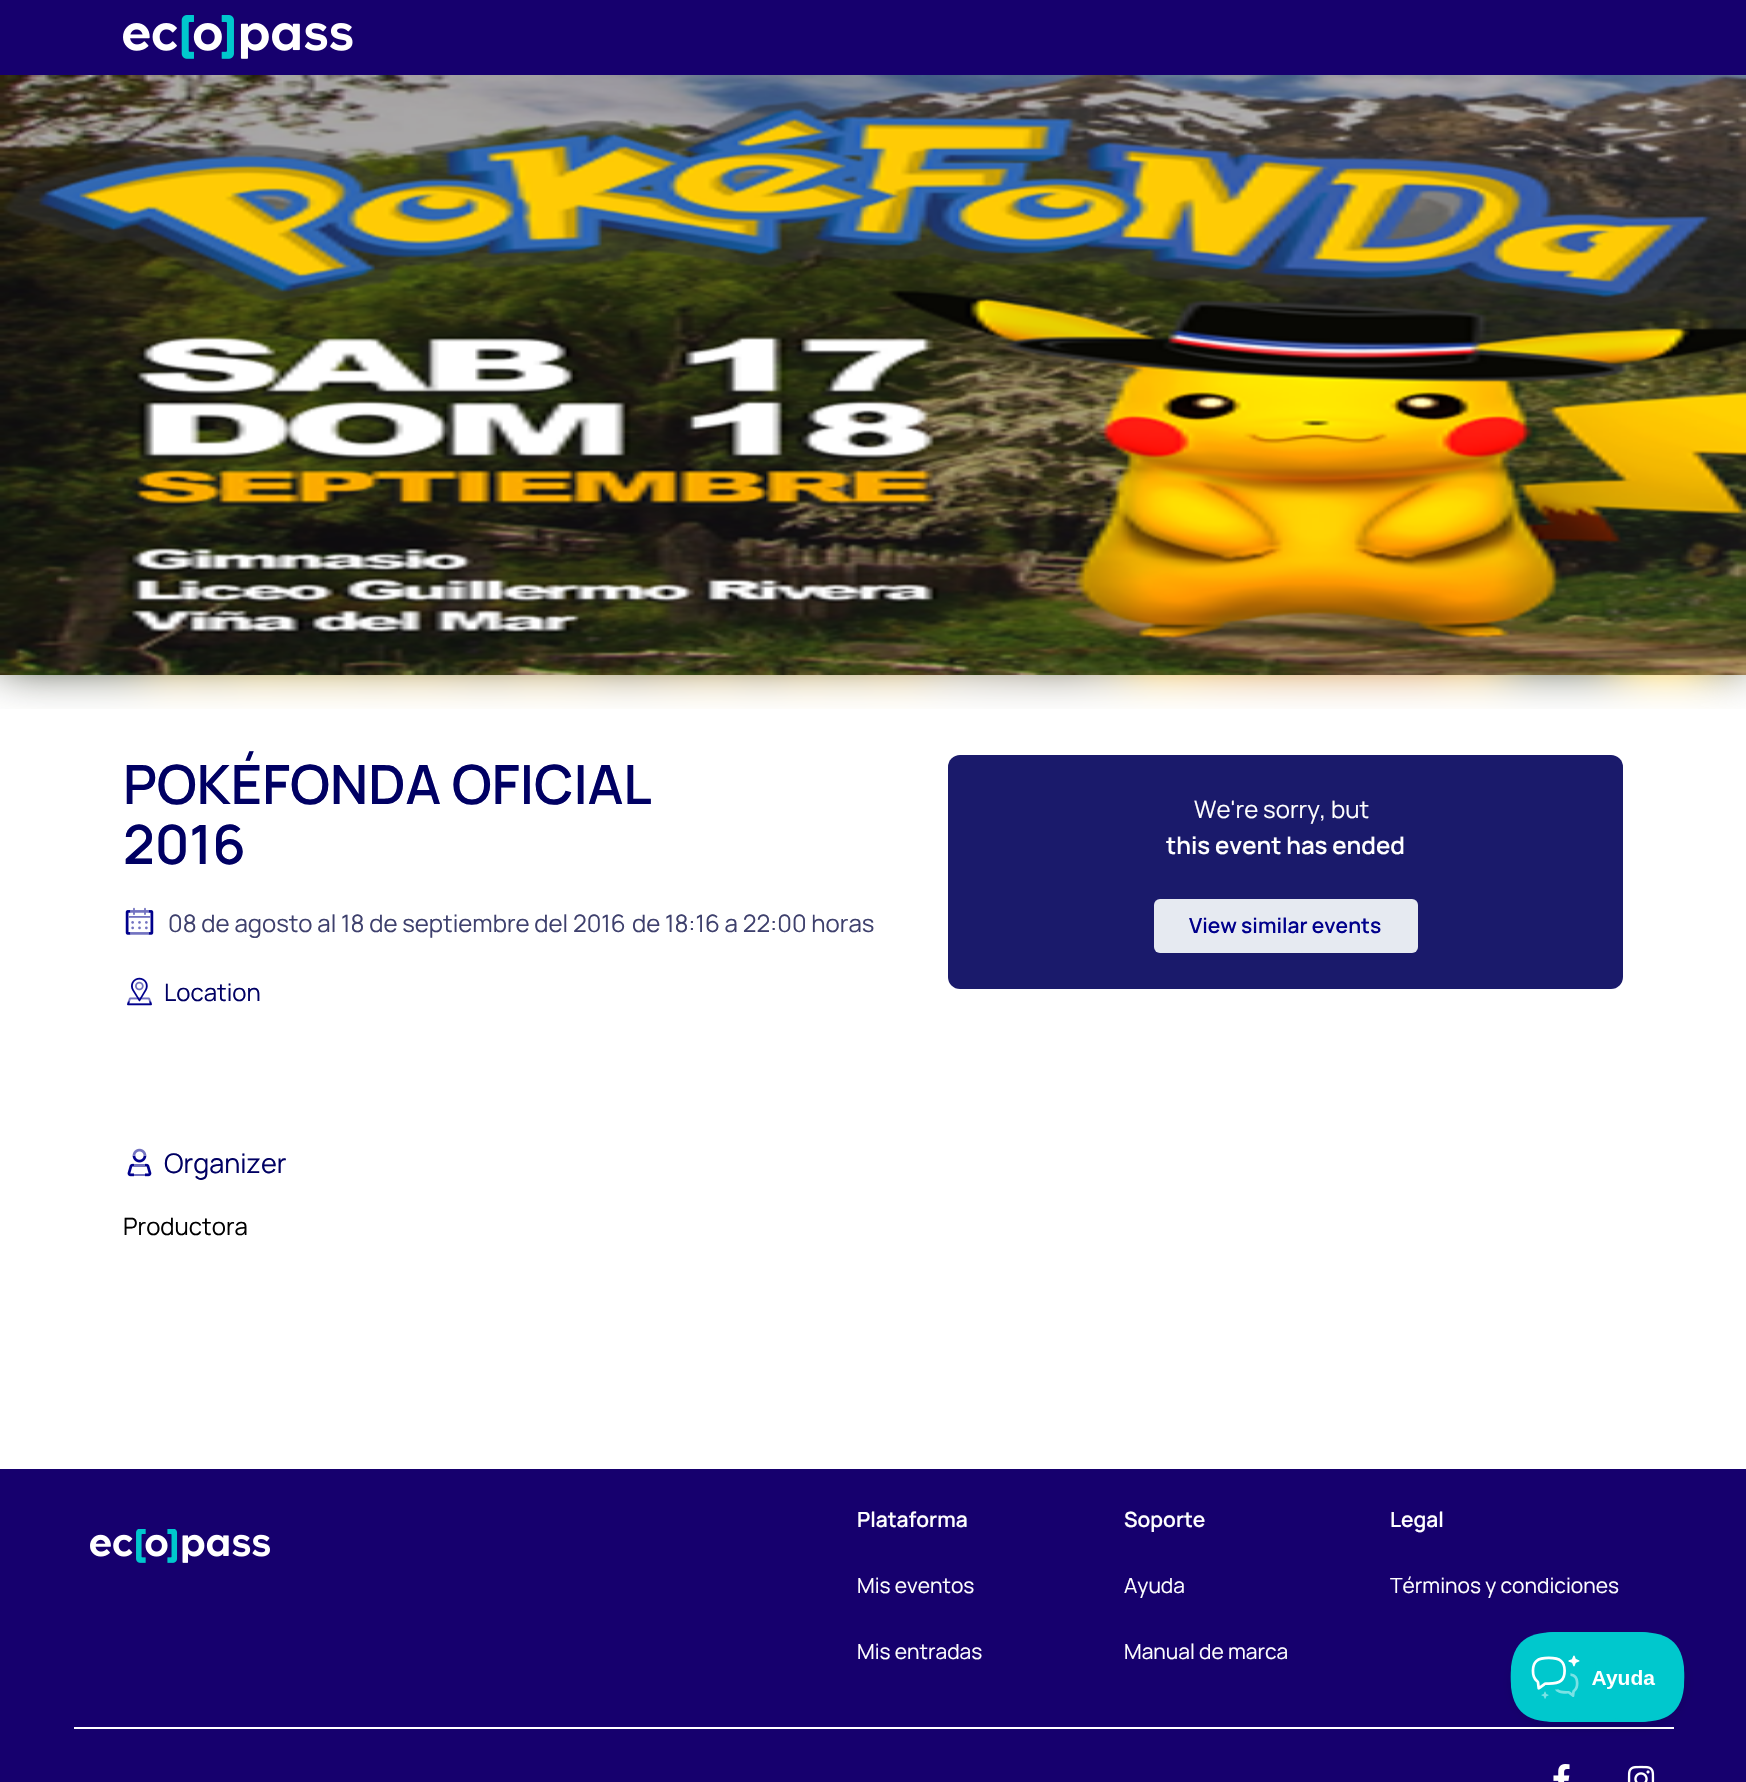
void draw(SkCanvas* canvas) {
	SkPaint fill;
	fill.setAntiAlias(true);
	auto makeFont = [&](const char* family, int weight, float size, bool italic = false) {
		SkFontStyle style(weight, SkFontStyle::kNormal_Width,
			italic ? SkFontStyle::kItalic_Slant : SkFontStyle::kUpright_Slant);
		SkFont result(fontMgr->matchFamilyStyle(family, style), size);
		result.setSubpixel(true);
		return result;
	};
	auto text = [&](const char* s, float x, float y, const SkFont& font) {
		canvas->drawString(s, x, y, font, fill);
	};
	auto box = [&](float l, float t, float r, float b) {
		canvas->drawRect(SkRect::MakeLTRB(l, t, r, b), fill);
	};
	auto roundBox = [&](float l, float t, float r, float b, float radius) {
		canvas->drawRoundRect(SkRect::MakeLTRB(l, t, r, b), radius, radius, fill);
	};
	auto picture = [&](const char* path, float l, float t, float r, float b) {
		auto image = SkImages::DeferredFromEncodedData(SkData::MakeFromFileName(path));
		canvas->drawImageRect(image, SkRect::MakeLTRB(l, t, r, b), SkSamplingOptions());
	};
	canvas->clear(0xFFFFFFFF);
	fill.setColor(0xFF16006E);
	box(0, 0, 1746, 75);
	picture("image0.png", 123, 15, 353, 59);
	picture("image1.png", 0, 75, 1746, 675);
	picture("image2.png", 0, 675, 1746, 709);
	picture("image3.png", 125, 907, 154, 935);
	picture("image4.png", 127, 977, 152, 1006);
	picture("image5.png", 127, 1148, 152, 1177);
	fill.setColor(0xFF1A1A6B);
	roundBox(948, 755, 1623, 989, 12);
	fill.setColor(0xFFE6EAF1);
	roundBox(1154, 899, 1418, 953, 6);
	fill.setColor(0xFF16006E);
	box(0, 1469, 1746, 1782);
	picture("image6.png", 90, 1529, 270, 1563);
	fill.setColor(0xFFFFFFFF);
	box(74, 1727, 1674, 1729);
	picture("image7.png", 1553, 1764, 1570, 1782);
	picture("image8.png", 1627, 1765, 1655, 1782);
	fill.setColor(0x1A000000);
	fill.setMaskFilter(SkMaskFilter::MakeBlur(kNormal_SkBlurStyle, 5));
	canvas->drawRoundRect(SkRect::MakeLTRB(1511, 1638, 1686, 1728), 45, 45, fill);
	fill.setMaskFilter(nullptr);
	picture("image9.png", 1510, 1632, 1685, 1722);
	auto font1 = makeFont("Manrope", 600, 54);
	fill.setColor(0xFF000063);
	text("POKÉFONDA OFICIAL", 123, 804, font1);
	text("2016", 123, 864, font1);
	auto font2 = makeFont("Manrope", 400, 24);
	fill.setColor(0xFF3E406D);
	text("08 de agosto al 18 de septiembre del 2016", 168, 932, font2);
	text("de 18:16 a 22:00 horas", 632, 932, font2);
	fill.setColor(0xFF000063);
	text("Location", 164, 1001, font2);
	auto font3 = makeFont("Manrope", 400, 27);
	text("Organizer", 164, 1173, font3);
	fill.setColor(0xFF000000);
	text("Productora", 123, 1235, font2);
	fill.setColor(0xFFFFFFFF);
	text("We're sorry, but", 1194, 818, font2);
	auto font4 = makeFont("Manrope", 600, 24);
	text("this event has ended", 1166, 854, font4);
	auto font5 = makeFont("Manrope", 600, 21);
	fill.setColor(0xFF00008C);
	text("View similar events", 1189, 933, font5);
	fill.setColor(0xFFFFFFFF);
	text("Plataforma", 857, 1527, font5);
	auto font6 = makeFont("Manrope", 400, 21);
	text("Mis eventos", 857, 1593, font6);
	text("Mis entradas", 857, 1659, font6);
	text("Soporte", 1124, 1527, font5);
	text("Ayuda", 1124, 1593, font6);
	text("Manual de marca", 1124, 1659, font6);
	text("Legal", 1390, 1527, font5);
	text("Términos y condiciones", 1390, 1593, font6);
}
